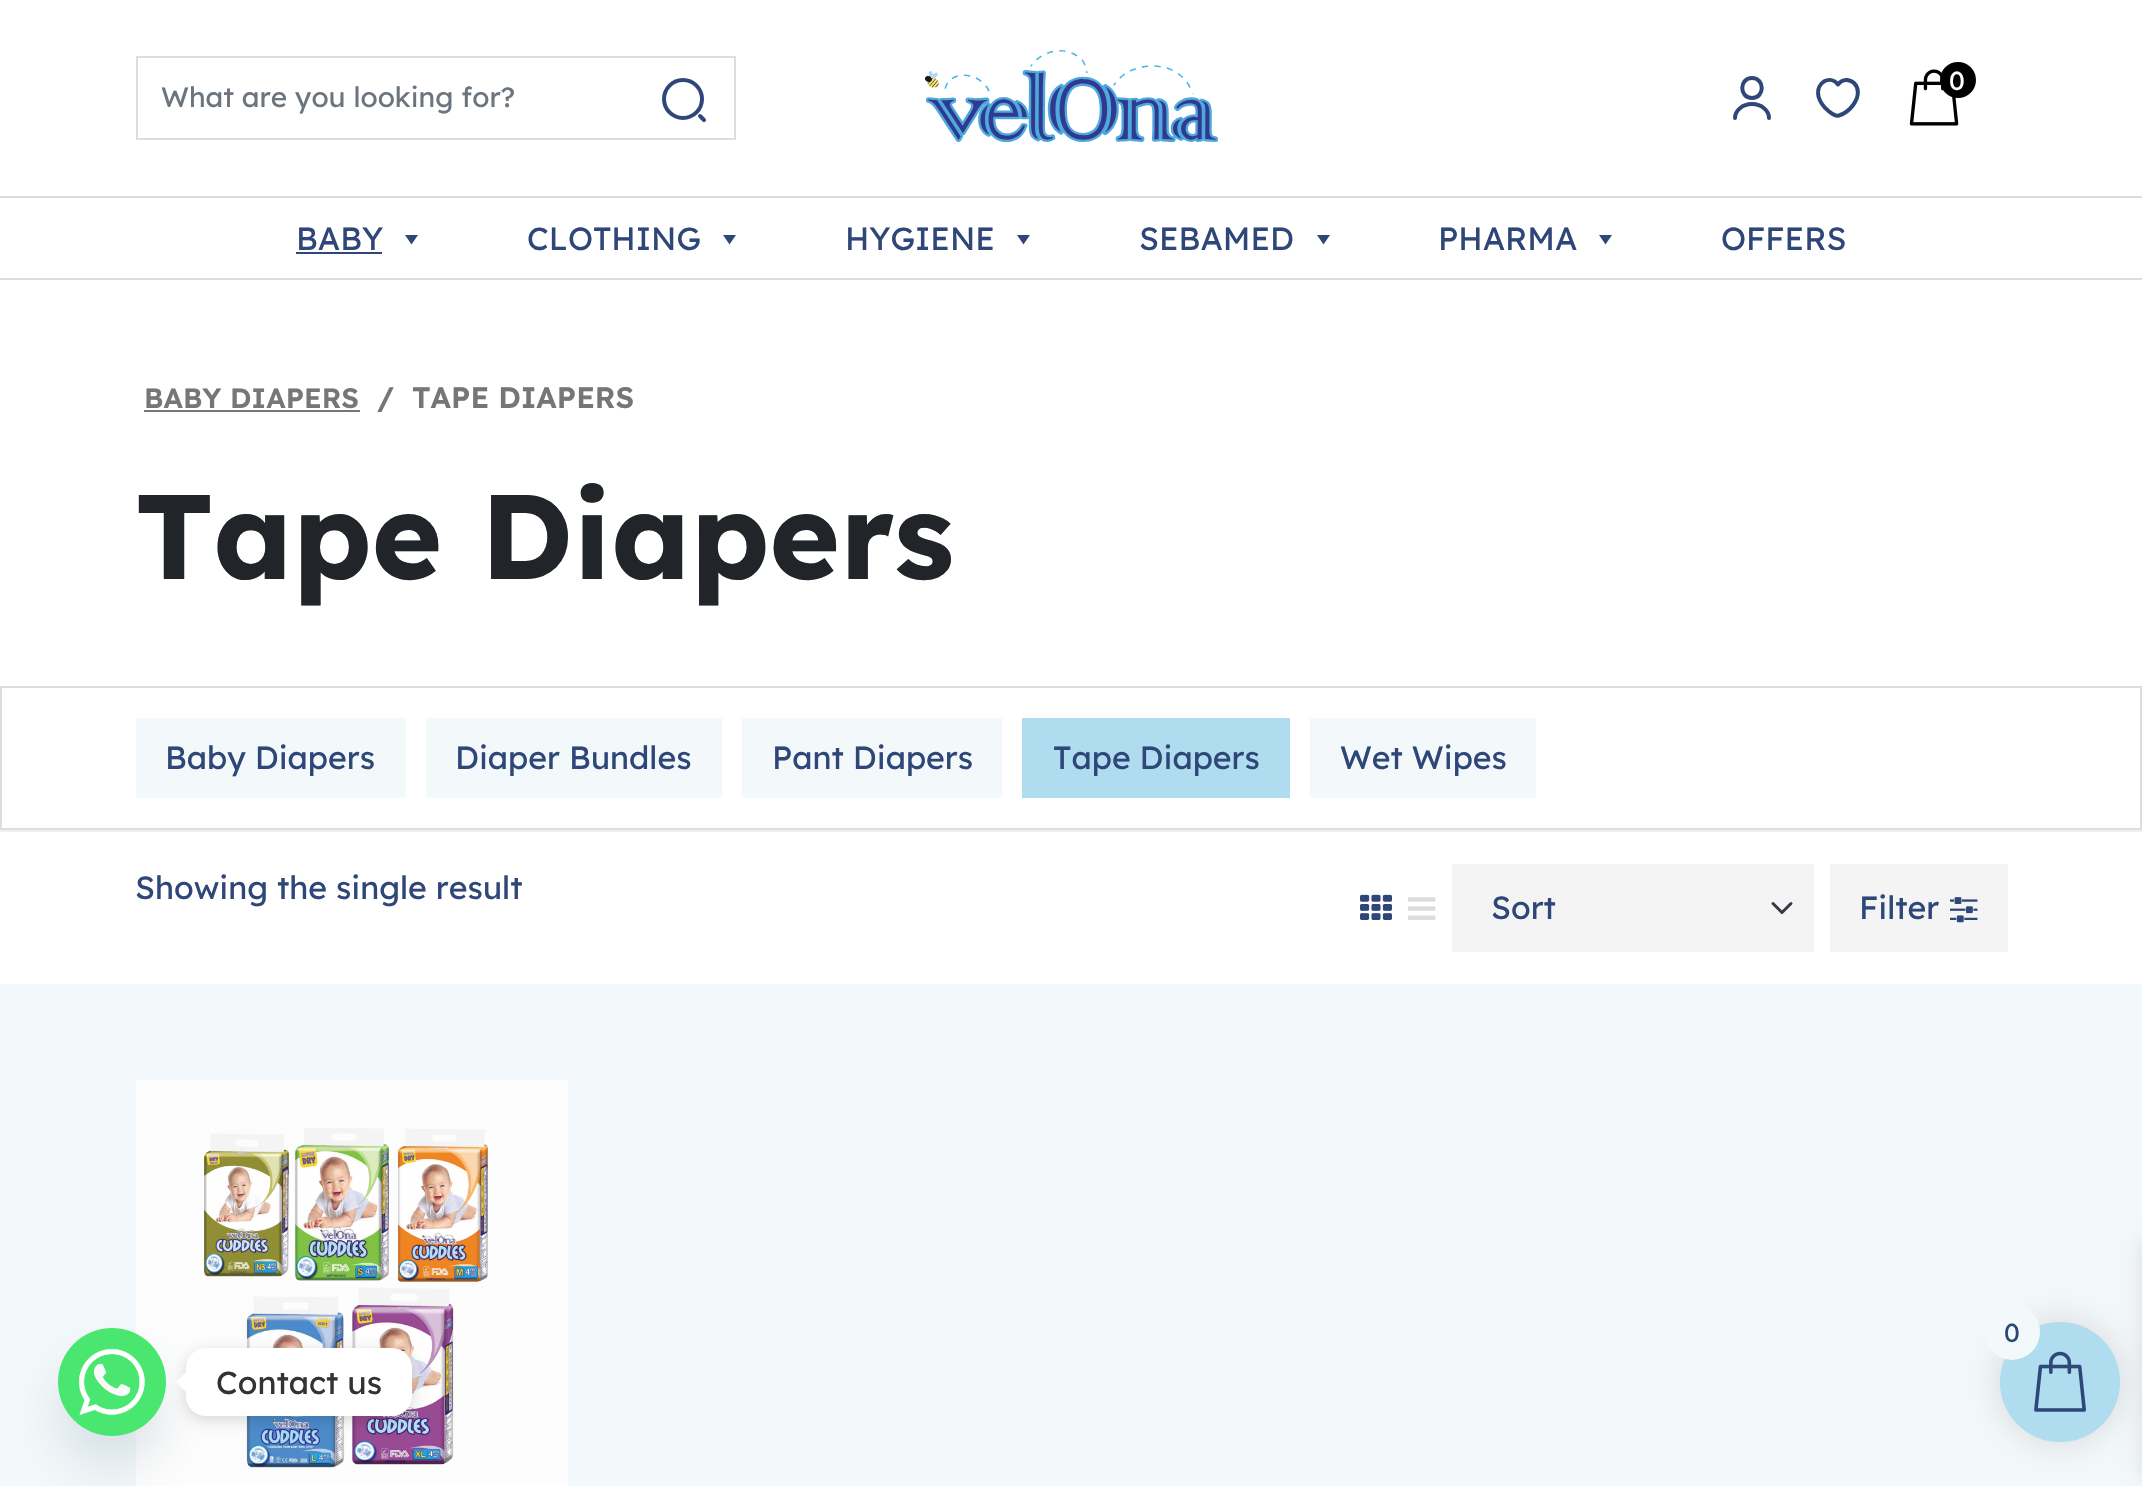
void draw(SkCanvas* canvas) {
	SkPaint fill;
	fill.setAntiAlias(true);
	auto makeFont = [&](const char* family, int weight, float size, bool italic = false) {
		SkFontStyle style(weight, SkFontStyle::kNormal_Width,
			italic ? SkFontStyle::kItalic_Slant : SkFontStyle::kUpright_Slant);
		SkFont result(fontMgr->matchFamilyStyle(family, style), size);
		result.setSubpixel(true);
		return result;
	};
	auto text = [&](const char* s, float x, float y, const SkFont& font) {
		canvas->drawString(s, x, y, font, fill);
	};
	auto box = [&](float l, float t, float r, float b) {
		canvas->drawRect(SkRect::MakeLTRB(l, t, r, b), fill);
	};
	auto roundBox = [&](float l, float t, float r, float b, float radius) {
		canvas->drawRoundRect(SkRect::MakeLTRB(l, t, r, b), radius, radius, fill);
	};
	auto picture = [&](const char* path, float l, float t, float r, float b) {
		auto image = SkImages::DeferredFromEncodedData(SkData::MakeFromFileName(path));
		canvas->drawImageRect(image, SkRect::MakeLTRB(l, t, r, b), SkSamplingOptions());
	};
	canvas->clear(0xFFFFFFFF);
	fill.setColor(0xFFDDDDDD);
	box(0, 196, 2142, 198);
	picture("image0.png", 925, 50, 1218, 142);
	fill.setStyle(SkPaint::kStroke_Style);
	fill.setStrokeWidth(4);
	fill.setStrokeCap(SkPaint::kRound_Cap);
	fill.setStrokeJoin(SkPaint::kRound_Join);
	fill.setColor(0xFF2F4778);
	canvas->drawPath(SkPathBuilder().moveTo(1752, 98).cubicTo(1765, 98, 1765, 78, 1752, 78).cubicTo(1739, 78, 1739, 98, 1752, 98).close().moveTo(1769, 118).cubicTo(1769, 110.5f, 1761.5f, 104, 1752, 104).cubicTo(1742.5f, 104, 1735, 110.5f, 1735, 118).detach(), fill);
	canvas->drawPath(SkPathBuilder().moveTo(1839, 115.5f).cubicTo(1835.5f, 117, 1830.5f, 112.5f, 1828.5f, 111).cubicTo(1823.5f, 107, 1820, 102, 1818.5f, 96.5f).cubicTo(1815.5f, 82, 1830.5f, 74.5f, 1838, 84.5f).cubicTo(1847, 72.5f, 1866.5f, 86, 1853.5f, 104.5f).cubicTo(1850, 109.5f, 1845, 113.5f, 1839, 115.5f).close().detach(), fill);
	picture("image1.png", 1909, 69, 1959, 126);
	fill.setStyle(SkPaint::kFill_Style);
	fill.setColor(0xFF000000);
	canvas->drawCircle(1958, 80, 18, fill);
	fill.setStyle(SkPaint::kStroke_Style);
	fill.setStrokeWidth(2);
	fill.setStrokeCap(SkPaint::kButt_Cap);
	fill.setStrokeJoin(SkPaint::kMiter_Join);
	fill.setColor(0xFFDDDDDD);
	canvas->drawRect(SkRect::MakeLTRB(137, 57, 735, 139), fill);
	fill.setStrokeWidth(4);
	fill.setStrokeCap(SkPaint::kRound_Cap);
	fill.setStrokeJoin(SkPaint::kRound_Join);
	fill.setColor(0xFF2F4778);
	canvas->drawPath(SkPathBuilder().moveTo(683, 118).cubicTo(693.5f, 118, 702, 109.5f, 702, 99).cubicTo(702, 88.5f, 693.5f, 80, 683, 80).cubicTo(672.5f, 80, 664, 88.5f, 664, 99).cubicTo(664, 109.5f, 672.5f, 118, 683, 118).close().moveTo(704, 120).lineTo(700, 116).detach(), fill);
	fill.setStyle(SkPaint::kFill_Style);
	fill.setColor(0xFFDDDDDD);
	box(0, 278, 2142, 280);
	fill.setColor(0xFF2F4778);
	box(296, 252, 382, 254);
	canvas->drawPath(SkPathBuilder().moveTo(418, 235).lineTo(411.5f, 244.5f).lineTo(405, 235).close().detach(), fill);
	canvas->drawPath(SkPathBuilder().moveTo(736, 235).lineTo(729.5f, 244.5f).lineTo(723, 235).close().detach(), fill);
	canvas->drawPath(SkPathBuilder().moveTo(1030, 235).lineTo(1023.5f, 244.5f).lineTo(1017, 235).close().detach(), fill);
	canvas->drawPath(SkPathBuilder().moveTo(1330, 235).lineTo(1323.5f, 244.5f).lineTo(1317, 235).close().detach(), fill);
	canvas->drawPath(SkPathBuilder().moveTo(1612, 235).lineTo(1605.5f, 244.5f).lineTo(1599, 235).close().detach(), fill);
	fill.setColor(0xFF767676);
	box(144, 410, 360, 412);
	fill.setStyle(SkPaint::kStroke_Style);
	fill.setStrokeWidth(2);
	fill.setStrokeCap(SkPaint::kButt_Cap);
	fill.setStrokeJoin(SkPaint::kMiter_Join);
	fill.setColor(0xFFDDDDDD);
	canvas->drawRect(SkRect::MakeLTRB(1, 687, 2141, 829), fill);
	fill.setStyle(SkPaint::kFill_Style);
	fill.setColor(0xFFF3F8FA);
	box(136, 718, 406, 798);
	box(426, 718, 722, 798);
	box(742, 718, 1002, 798);
	fill.setColor(0xFFB0DCEF);
	box(1022, 718, 1290, 798);
	fill.setColor(0xFFF3F8FA);
	box(1310, 718, 1536, 798);
	fill.setColor(0xFFF0F0F0);
	box(0, 830, 2142, 832);
	picture("image2.png", 1360, 894, 1392, 920);
	picture("image3.png", 1408, 897, 1436, 920);
	fill.setColor(0xFFF4F4F4);
	box(1452, 864, 1814, 952);
	fill.setStyle(SkPaint::kStroke_Style);
	fill.setStrokeWidth(3);
	fill.setStrokeCap(SkPaint::kRound_Cap);
	fill.setStrokeJoin(SkPaint::kRound_Join);
	fill.setColor(0xFF343A40);
	canvas->drawPath(SkPathBuilder().moveTo(1773, 903.5f).lineTo(1782, 912.5f).lineTo(1791, 903.5f).detach(), fill);
	fill.setStyle(SkPaint::kFill_Style);
	fill.setColor(0xFFF4F4F4);
	box(1830, 864, 2008, 952);
	picture("image4.png", 1950, 897, 1978, 923);
	fill.setColor(0xFFF3F8FA);
	box(0, 984, 2142, 1486);
	fill.setColor(0xFFFDFDFD);
	box(136, 1080, 568, 1486);
	picture("image5.png", 204, 1128, 488, 1468);
	fill.setColor(0x1A000000);
	fill.setMaskFilter(SkMaskFilter::MakeBlur(kNormal_SkBlurStyle, 15));
	canvas->drawRoundRect(SkRect::MakeLTRB(1996, 1318, 2124, 1446), 64, 64, fill);
	fill.setMaskFilter(nullptr);
	fill.setMaskFilter(SkMaskFilter::MakeBlur(kNormal_SkBlurStyle, 10));
	canvas->drawRect(SkRect::MakeLTRB(2142, 1240, 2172, 1476), fill);
	fill.setMaskFilter(nullptr);
	fill.setColor(0xFFB0DCEF);
	canvas->drawCircle(2060, 1382, 60, fill);
	picture("image6.png", 2034, 1351, 2086, 1412);
	fill.setColor(0xFFF3F8FA);
	canvas->drawCircle(2012, 1332, 28, fill);
	fill.setColor(0x2949687E);
	fill.setMaskFilter(SkMaskFilter::MakeBlur(kNormal_SkBlurStyle, 24));
	canvas->drawRoundRect(SkRect::MakeLTRB(58, 1360, 166, 1468), 54, 54, fill);
	fill.setMaskFilter(nullptr);
	picture("image7.png", 58, 1328, 166, 1436);
	fill.setColor(0x26000000);
	fill.setMaskFilter(SkMaskFilter::MakeBlur(kNormal_SkBlurStyle, 7.5f));
	canvas->drawRoundRect(SkRect::MakeLTRB(186, 1352, 412, 1420), 20, 20, fill);
	fill.setMaskFilter(nullptr);
	fill.setColor(0xFFFFFFFF);
	roundBox(186, 1348, 412, 1416, 20);
	canvas->drawPath(SkPathBuilder().moveTo(186, 1372).lineTo(186, 1392).lineTo(176, 1382).close().detach(), fill);
	auto font1 = makeFont("Lexend", 400, 26);
	text("0", 1949, 90, font1);
	auto font2 = makeFont("Lexend", 400, 28);
	fill.setColor(0xFF6C757D);
	text("What are you looking for?", 161, 107, font2);
	auto font3 = makeFont("Lexend", 400, 32);
	fill.setColor(0xFF2F4778);
	text("BABY", 296, 250, font3);
	text("CLOTHING", 527, 250, font3);
	text("HYGIENE", 845, 250, font3);
	text("SEBAMED", 1139, 250, font3);
	text("PHARMA", 1438, 250, font3);
	text("OFFERS", 1721, 250, font3);
	auto font4 = makeFont("Lexend", 600, 28);
	fill.setColor(0xFF767676);
	text("BABY DIAPERS", 144, 408, font4);
	auto font5 = makeFont("Lexend", 600, 29.5f);
	text("/", 377, 408, font5);
	text("TAPE DIAPERS", 412, 408, font5);
	auto font6 = makeFont("Lexend", 700, 120);
	fill.setColor(0xFF212529);
	text("Tape Diapers", 135, 579, font6);
	fill.setColor(0xFF2F4778);
	text("Baby Diapers", 165, 769, font3);
	text("Diaper Bundles", 455, 769, font3);
	text("Pant Diapers", 772, 769, font3);
	text("Tape Diapers", 1053, 769, font3);
	text("Wet Wipes", 1340, 769, font3);
	text("Showing the single result", 135, 899, font3);
	text("Sort", 1491, 919, font3);
	text("Filter", 1859, 919, font3);
	text("0", 2004, 1342, font1);
	fill.setColor(0xFF333333);
	text("Contact us", 216, 1394, font3);
}
